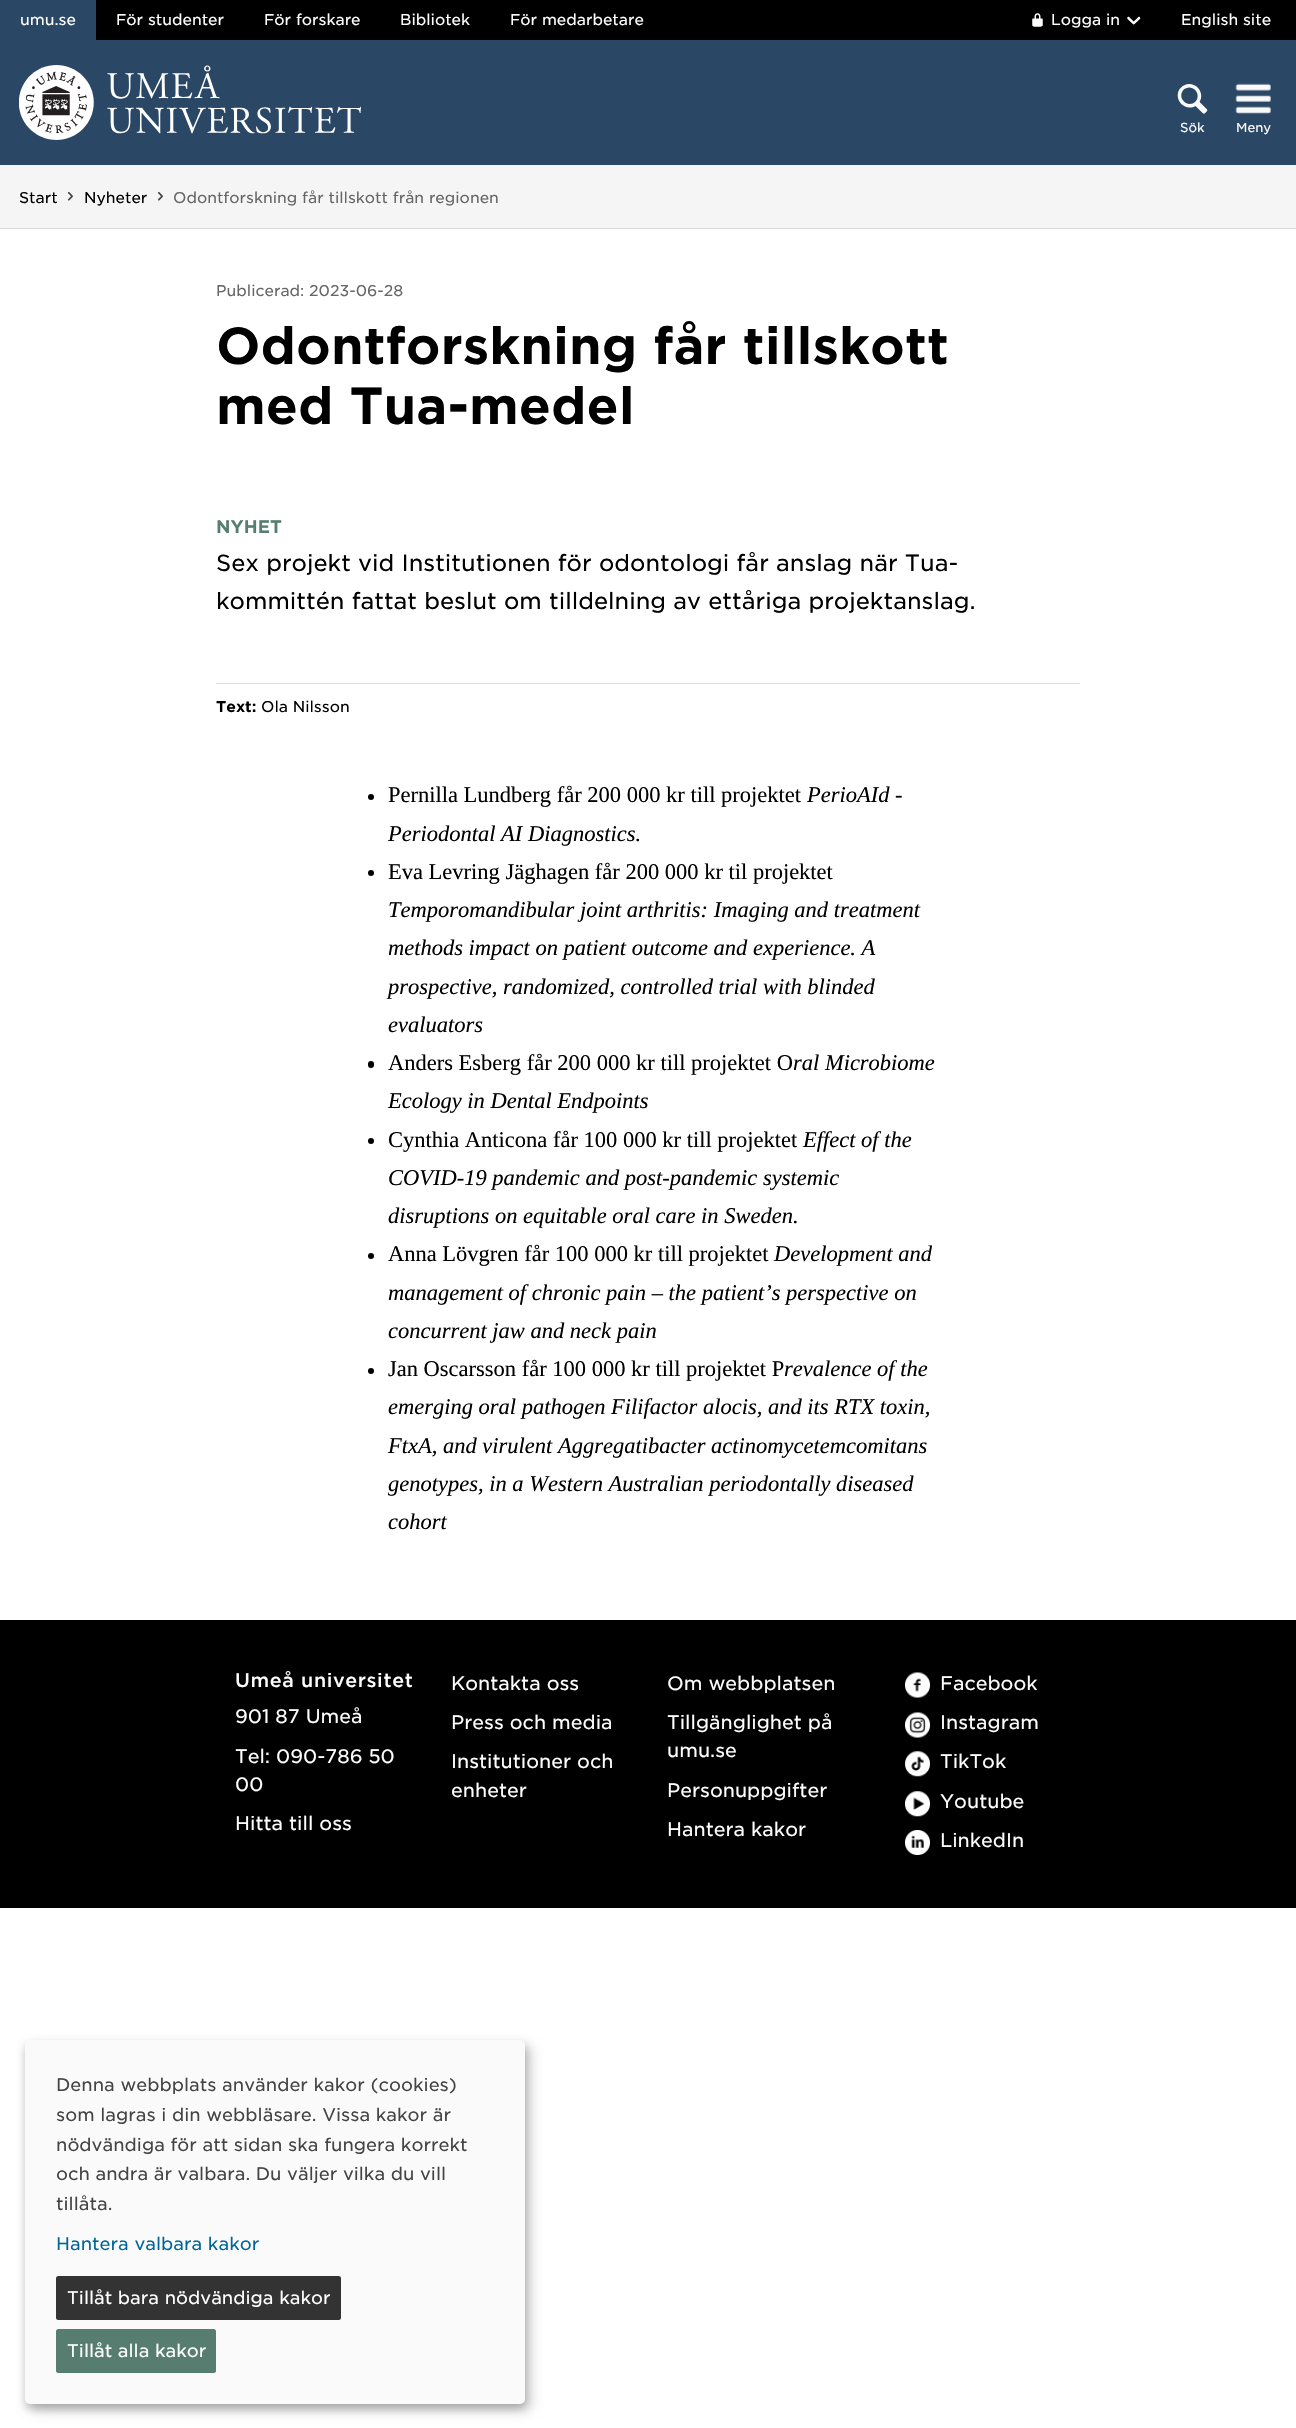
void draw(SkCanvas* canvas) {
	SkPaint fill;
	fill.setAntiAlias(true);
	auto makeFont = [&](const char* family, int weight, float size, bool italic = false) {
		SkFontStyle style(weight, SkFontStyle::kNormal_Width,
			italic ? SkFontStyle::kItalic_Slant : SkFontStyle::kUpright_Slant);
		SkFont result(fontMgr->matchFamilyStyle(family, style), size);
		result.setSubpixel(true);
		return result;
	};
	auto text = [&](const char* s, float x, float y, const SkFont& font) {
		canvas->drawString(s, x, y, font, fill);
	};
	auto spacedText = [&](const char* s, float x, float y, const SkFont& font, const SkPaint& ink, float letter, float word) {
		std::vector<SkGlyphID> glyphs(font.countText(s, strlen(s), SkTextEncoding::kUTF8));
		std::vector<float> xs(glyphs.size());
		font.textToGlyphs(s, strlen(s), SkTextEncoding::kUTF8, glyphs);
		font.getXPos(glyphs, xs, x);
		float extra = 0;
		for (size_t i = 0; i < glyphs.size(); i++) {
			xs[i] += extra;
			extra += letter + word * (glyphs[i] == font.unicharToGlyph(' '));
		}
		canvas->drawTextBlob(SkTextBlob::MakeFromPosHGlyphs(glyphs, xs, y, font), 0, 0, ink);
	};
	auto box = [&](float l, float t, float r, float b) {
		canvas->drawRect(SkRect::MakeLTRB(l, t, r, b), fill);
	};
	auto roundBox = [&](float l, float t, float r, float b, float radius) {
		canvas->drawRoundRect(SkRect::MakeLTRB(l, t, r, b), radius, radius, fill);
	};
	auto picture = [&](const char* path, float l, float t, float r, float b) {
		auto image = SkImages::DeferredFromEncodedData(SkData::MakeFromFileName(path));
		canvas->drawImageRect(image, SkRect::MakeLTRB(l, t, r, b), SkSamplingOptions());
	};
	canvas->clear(0xFFFFFFFF);
	fill.setColor(0xFF000000);
	box(96, 0, 1296, 40);
	fill.setColor(0xFF2A4765);
	box(0, 0, 96, 40);
	picture("image0.png", 1032, 13, 1043, 27);
	picture("image1.png", 1127, 16, 1141, 25);
	box(0, 40, 1296, 165);
	picture("image2.png", 19, 65, 361, 140);
	picture("image3.png", 1177, 84, 1208, 114);
	picture("image4.png", 1235, 83, 1271, 114);
	fill.setColor(0xFFF5F5F5);
	box(0, 165, 1296, 228);
	fill.setColor(0xFFDDDDDD);
	box(0, 228, 1296, 229);
	picture("image5.png", 67, 191, 73, 201);
	picture("image5.png", 157, 191, 163, 201);
	box(216, 683, 1080, 684);
	fill.setColor(0xFF000000);
	canvas->drawCircle(371, 797, 3, fill);
	canvas->drawCircle(371, 873, 3, fill);
	roundBox(368, 1061, 374, 1068, 3);
	canvas->drawCircle(371, 1141, 3, fill);
	canvas->drawCircle(371, 1256, 3, fill);
	canvas->drawCircle(371, 1371, 3, fill);
	box(0, 1620, 1296, 1908);
	picture("image6.png", 905, 1672, 930, 1698);
	picture("image7.png", 905, 1712, 930, 1738);
	picture("image8.png", 905, 1751, 930, 1777);
	picture("image9.png", 905, 1791, 930, 1817);
	picture("image10.png", 905, 1830, 930, 1855);
	fill.setColor(0x30000000);
	fill.setMaskFilter(SkMaskFilter::MakeBlur(kNormal_SkBlurStyle, 6));
	canvas->drawRoundRect(SkRect::MakeLTRB(31, 2046, 531, 2410), 5, 5, fill);
	fill.setMaskFilter(nullptr);
	fill.setColor(0x33000000);
	fill.setMaskFilter(SkMaskFilter::MakeBlur(kNormal_SkBlurStyle, 4));
	canvas->drawRoundRect(SkRect::MakeLTRB(25, 2045, 525, 2409), 5, 5, fill);
	fill.setMaskFilter(nullptr);
	fill.setColor(0xFFFAFAFA);
	roundBox(25, 2040, 525, 2404, 5);
	fill.setColor(0xFF333333);
	roundBox(56, 2276, 341, 2320, 2.5f);
	fill.setColor(0xFF567D70);
	roundBox(56, 2329, 216, 2373, 2.5f);
	auto font1 = makeFont("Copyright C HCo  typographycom", 300, 15);
	fill.setColor(0xFFFFFFFF);
	text("umu.se", 20, 25, font1);
	text("För studenter", 116, 25, font1);
	text("För forskare", 264, 25, font1);
	text("Bibliotek", 400, 25, font1);
	text("För medarbetare", 510, 25, font1);
	text("Logga in", 1051, 25, font1);
	text("English site", 1181, 25, font1);
	auto font2 = makeFont("Copyright C HCo  typographycom", 300, 12.5f);
	text("Sök", 1180, 132, font2);
	text("Meny", 1236, 132, font2);
	fill.setColor(0xFF000000);
	text("Start", 19, 203, font1);
	text("Nyheter", 84, 203, font1);
	fill.setColor(0xFF666666);
	text("Odontforskning får tillskott från regionen", 173, 203, font1);
	text("Publicerad: 2023-06-28", 216, 296, font1);
	auto font3 = makeFont("Copyright C HCo  typographycom", 400, 50);
	fill.setColor(0xFF000000);
	text("Odontforskning får tillskott", 216, 364, font3);
	text("med Tua-medel", 216, 424, font3);
	auto font4 = makeFont("Copyright C HCo  typographycom", 400, 17.5f);
	fill.setColor(0xFF567D70);
	text("NYHET", 216, 533, font4);
	auto font5 = makeFont("Copyright C HCo  typographycom", 300, 22.5f);
	fill.setColor(0xFF000000);
	text("Sex projekt vid Institutionen för odontologi får anslag när Tua-", 216, 571, font5);
	text("kommittén fattat beslut om tilldelning av ettåriga projektanslag.", 216, 609, font5);
	auto font6 = makeFont("Copyright C HCo  typographycom", 400, 15);
	text("Text:", 216, 712, font6);
	text("Ola Nilsson", 261, 712, font1);
	auto font7 = makeFont("Liberation Serif", 400, 22.5f);
	text("Pernilla Lundberg får 200 000 kr till projektet", 388, 802, font7);
	auto font8 = makeFont("Liberation Serif", 400, 22.5f, true);
	text("PerioAId -", 807, 802, font8);
	text("Periodontal AI Diagnostics.", 388, 841, font8);
	text("Eva Levring Jäghagen får 200 000 kr til projektet", 388, 879, font7);
	text("Temporomandibular joint arthritis: Imaging and treatment", 388, 917, font8);
	text("methods impact on patient outcome and experience. A", 388, 955, font8);
	text("prospective, randomized, controlled trial with blinded", 388, 994, font8);
	text("evaluators", 388, 1032, font8);
	text("Anders Esberg får 200 000 kr till projektet O", 388, 1070, font7);
	text("ral Microbiome", 793, 1070, font8);
	text("Ecology in Dental Endpoints", 388, 1108, font8);
	text("Cynthia Anticona får 100 000 kr till projektet", 388, 1147, font7);
	text("Effect of the", 803, 1147, font8);
	text("COVID-19 pandemic and post-pandemic systemic", 388, 1185, font8);
	text("disruptions on equitable oral care in Sweden.", 388, 1223, font8);
	text("Anna Lövgren får 100 000 kr till projektet", 388, 1261, font7);
	text("Development and", 774, 1261, font8);
	text("management of chronic pain – the patient’s perspective on", 388, 1300, font8);
	text("concurrent jaw and neck pain", 388, 1338, font8);
	text("Jan Oscarsson får 100 000 kr till projektet P", 388, 1376, font7);
	text("revalence of the", 784, 1376, font8);
	text("emerging oral pathogen Filifactor alocis, and its RTX toxin,", 388, 1414, font8);
	text("FtxA, and virulent Aggregatibacter actinomycetemcomitans", 388, 1453, font8);
	text("genotypes, in a Western Australian periodontally diseased", 388, 1491, font8);
	text("cohort", 388, 1529, font8);
	auto font9 = makeFont("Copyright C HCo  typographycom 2", 300, 18.75f);
	fill.setColor(0xFFFFFFFF);
	spacedText("Umeå universitet", 235, 1687, font9, fill, 0.6f, 0);
	auto font10 = makeFont("Copyright C HCo  typographycom", 300, 18.75f);
	text("901 87 Umeå", 235, 1723, font10);
	text("Tel: 090-786 50", 235, 1763, font10);
	text("00", 235, 1791, font10);
	text("Hitta till oss", 235, 1830, font10);
	text("Kontakta oss", 451, 1690, font10);
	text("Press och media", 451, 1729, font10);
	text("Institutioner och", 451, 1768, font10);
	text("enheter", 451, 1797, font10);
	text("Om webbplatsen", 667, 1690, font10);
	text("Tillgänglighet på", 667, 1729, font10);
	text("umu.se", 667, 1757, font10);
	text("Personuppgifter", 667, 1797, font10);
	text("Hantera kakor", 667, 1836, font10);
	text("Facebook", 940, 1690, font10);
	text("Instagram", 940, 1729, font10);
	text("TikTok", 940, 1768, font10);
	text("Youtube", 940, 1808, font10);
	text("LinkedIn", 940, 1847, font10);
	auto font11 = makeFont("Copyright C HCo  typographycom", 300, 17.5f);
	fill.setColor(0xFF444444);
	text("Denna webbplats använder kakor (cookies)", 56, 2091, font11);
	text("som lagras i din webbläsare. Vissa kakor är", 56, 2121, font11);
	text("nödvändiga för att sidan ska fungera korrekt", 56, 2151, font11);
	text("och andra är valbara. Du väljer vilka du vill", 56, 2180, font11);
	text("tillåta.", 56, 2210, font11);
	fill.setColor(0xFF006699);
	text("Hantera valbara kakor", 56, 2250, font11);
	fill.setColor(0xFFFFFFFF);
	text("Tillåt bara nödvändiga kakor", 67, 2304, font11);
	text("Tillåt alla kakor", 67, 2357, font11);
}
